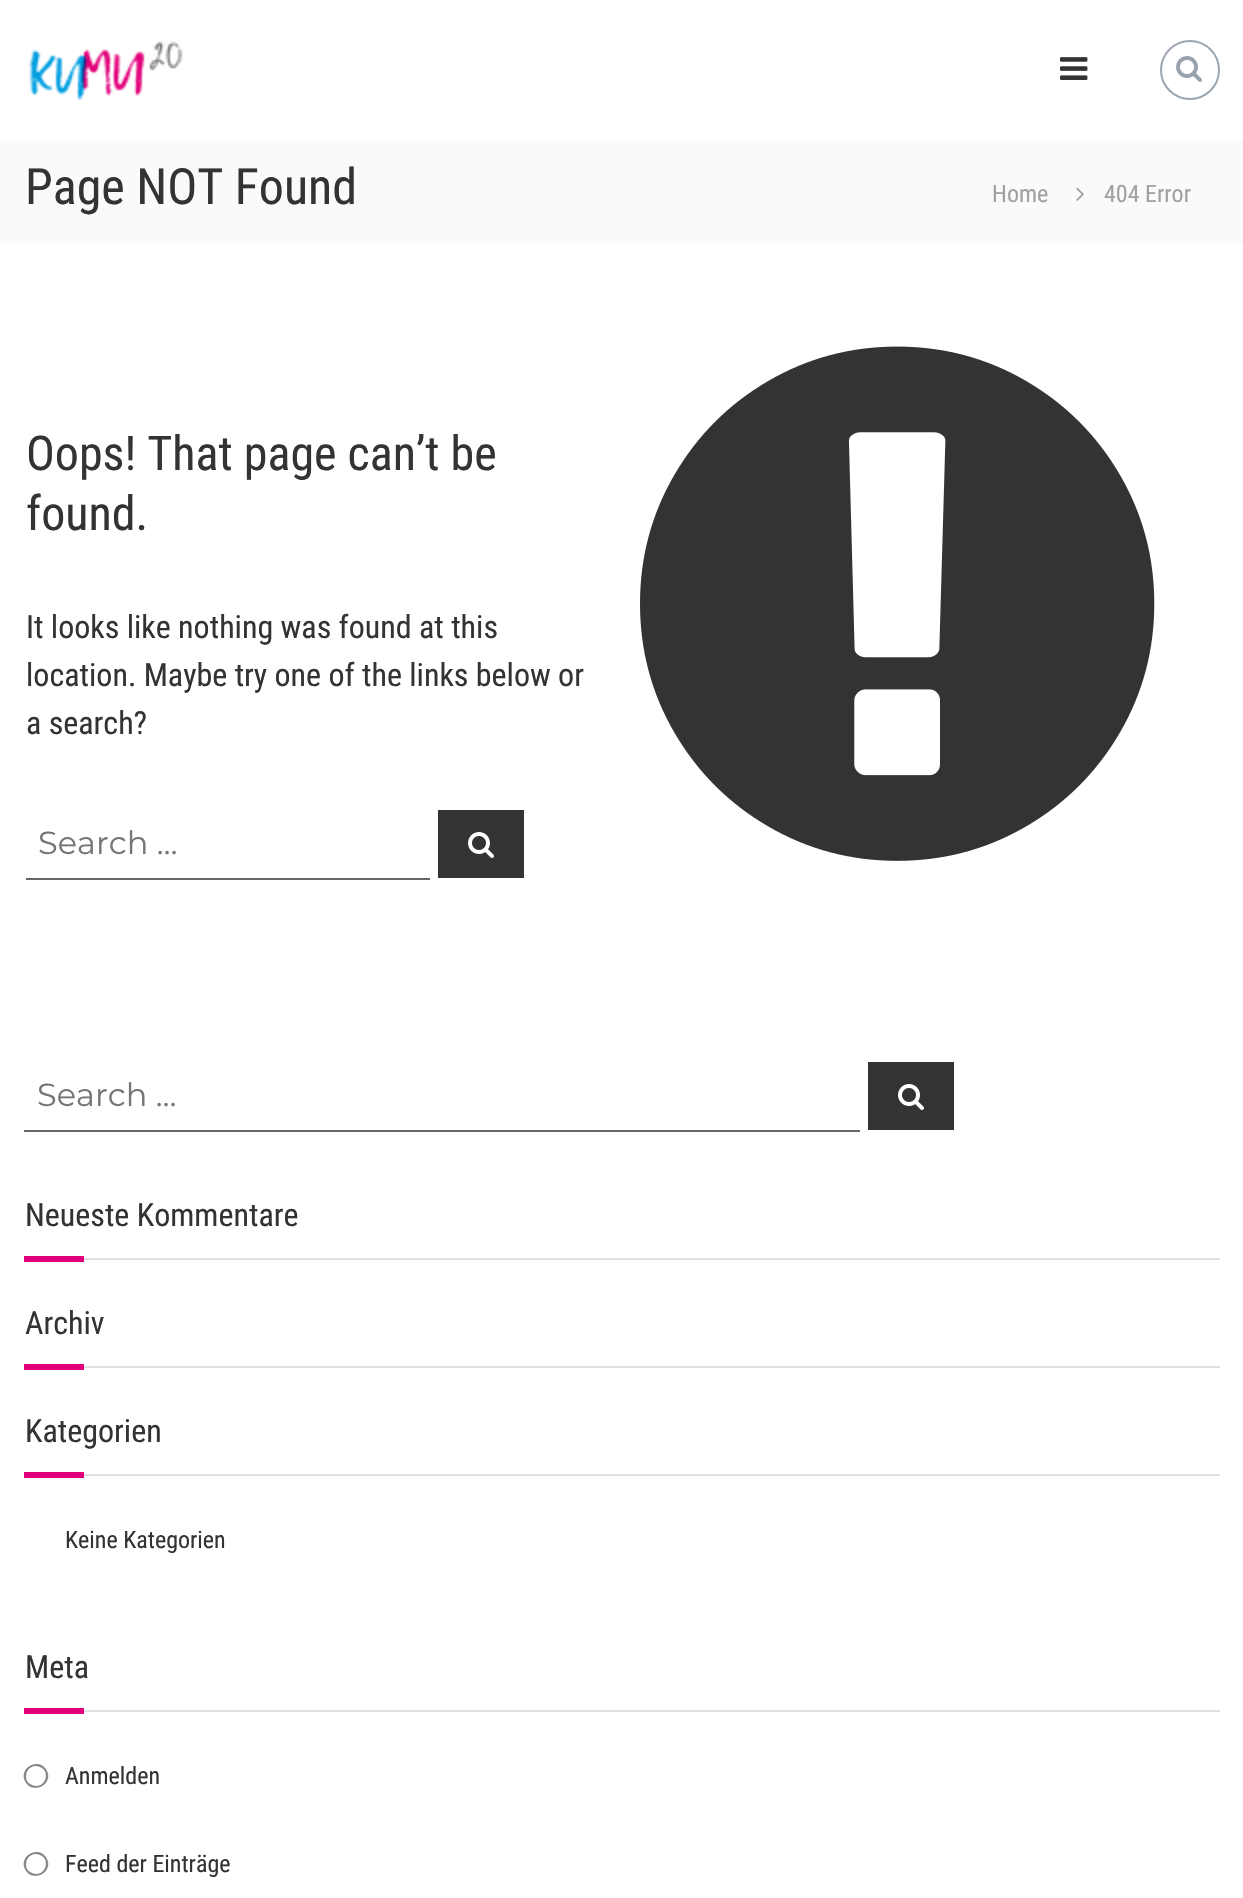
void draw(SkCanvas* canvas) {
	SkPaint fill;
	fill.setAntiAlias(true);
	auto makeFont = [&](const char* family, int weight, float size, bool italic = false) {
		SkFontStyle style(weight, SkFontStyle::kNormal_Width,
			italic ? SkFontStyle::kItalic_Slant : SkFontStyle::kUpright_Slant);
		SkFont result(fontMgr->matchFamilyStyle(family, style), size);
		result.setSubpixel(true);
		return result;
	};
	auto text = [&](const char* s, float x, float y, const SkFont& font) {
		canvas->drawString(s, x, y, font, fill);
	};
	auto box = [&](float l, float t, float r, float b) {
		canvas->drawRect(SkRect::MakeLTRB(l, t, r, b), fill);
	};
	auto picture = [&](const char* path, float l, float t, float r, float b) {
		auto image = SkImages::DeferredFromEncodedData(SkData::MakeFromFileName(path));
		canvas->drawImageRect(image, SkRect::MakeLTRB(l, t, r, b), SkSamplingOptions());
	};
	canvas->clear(0xFFFFFFFF);
	picture("image0.png", 29, 41, 183, 100);
	picture("image1.png", 1060, 57, 1088, 80);
	fill.setStyle(SkPaint::kStroke_Style);
	fill.setStrokeWidth(2);
	fill.setColor(0xFF9CA6B2);
	canvas->drawCircle(1190, 70, 29, fill);
	picture("image2.png", 1176, 56, 1202, 82);
	fill.setStyle(SkPaint::kFill_Style);
	fill.setColor(0xFFFAFAFA);
	box(0, 140, 1243, 244);
	picture("image3.png", 1076, 187, 1084, 201);
	fill.setColor(0xFF666666);
	box(26, 878, 430, 880);
	fill.setColor(0xFF333333);
	box(438, 810, 524, 878);
	picture("image4.png", 468, 832, 494, 858);
	picture("image5.png", 640, 346, 1155, 861);
	fill.setColor(0xFF666666);
	box(24, 1130, 860, 1132);
	fill.setColor(0xFF333333);
	box(868, 1062, 954, 1130);
	picture("image4.png", 898, 1084, 924, 1110);
	fill.setColor(0xFFE2007A);
	box(24, 1256, 84, 1262);
	fill.setColor(0xFFE1E1E1);
	box(84, 1258, 1220, 1260);
	fill.setColor(0xFFE2007A);
	box(24, 1364, 84, 1370);
	fill.setColor(0xFFE1E1E1);
	box(84, 1366, 1220, 1368);
	fill.setColor(0xFFE2007A);
	box(24, 1472, 84, 1478);
	fill.setColor(0xFFE1E1E1);
	box(84, 1474, 1220, 1476);
	fill.setColor(0xFFE2007A);
	box(24, 1708, 84, 1714);
	fill.setColor(0xFFE1E1E1);
	box(84, 1710, 1220, 1712);
	fill.setColor(0xFF888888);
	canvas->drawPath(SkPathBuilder().moveTo(40, 1767).cubicTo(28, 1761.5f, 20, 1780, 32, 1785).cubicTo(44, 1790.5f, 52, 1772, 40, 1767).close().moveTo(46.5f, 1770).cubicTo(54.5f, 1783.5f, 33.5f, 1795.5f, 25.5f, 1782).cubicTo(17.5f, 1768.5f, 38.5f, 1756.5f, 46.5f, 1770).close().detach(), fill);
	canvas->drawPath(SkPathBuilder().moveTo(40, 1855).cubicTo(28, 1849.5f, 20, 1868, 32, 1873).cubicTo(44, 1878.5f, 52, 1860, 40, 1855).close().moveTo(46.5f, 1858).cubicTo(54.5f, 1871.5f, 33.5f, 1883.5f, 25.5f, 1870).cubicTo(17.5f, 1856.5f, 38.5f, 1844.5f, 46.5f, 1858).close().detach(), fill);
	auto font1 = makeFont("Roboto Condensed", 400, 50);
	fill.setColor(0xFF333333);
	text("Page NOT Found", 25, 204, font1);
	auto font2 = makeFont("Roboto Condensed", 400, 24);
	fill.setColor(0xFFA1A1A1);
	text("Home", 992, 202, font2);
	text("404 Error", 1104, 202, font2);
	auto font3 = makeFont("Roboto Condensed", 400, 48);
	fill.setColor(0xFF333333);
	text("Oops! That page can’t be", 26, 470, font3);
	text("found.", 26, 530, font3);
	auto font4 = makeFont("Roboto Condensed", 400, 32);
	text("It looks like nothing was found at this", 26, 638, font4);
	text("location. Maybe try one of the links below or", 26, 686, font4);
	text("a search?", 26, 734, font4);
	auto font5 = makeFont("Montserrat", 400, 32);
	fill.setColor(0xFF757575);
	text("Search …", 38, 854, font5);
	text("Search …", 37, 1106, font5);
	fill.setColor(0xFF333333);
	text("Neueste Kommentare", 25, 1226, font4);
	text("Archiv", 25, 1334, font4);
	text("Kategorien", 25, 1442, font4);
	text("Keine Kategorien", 65, 1548, font2);
	text("Meta", 25, 1678, font4);
	text("Anmelden", 65, 1784, font2);
	text("Feed der Einträge", 65, 1872, font2);
}
